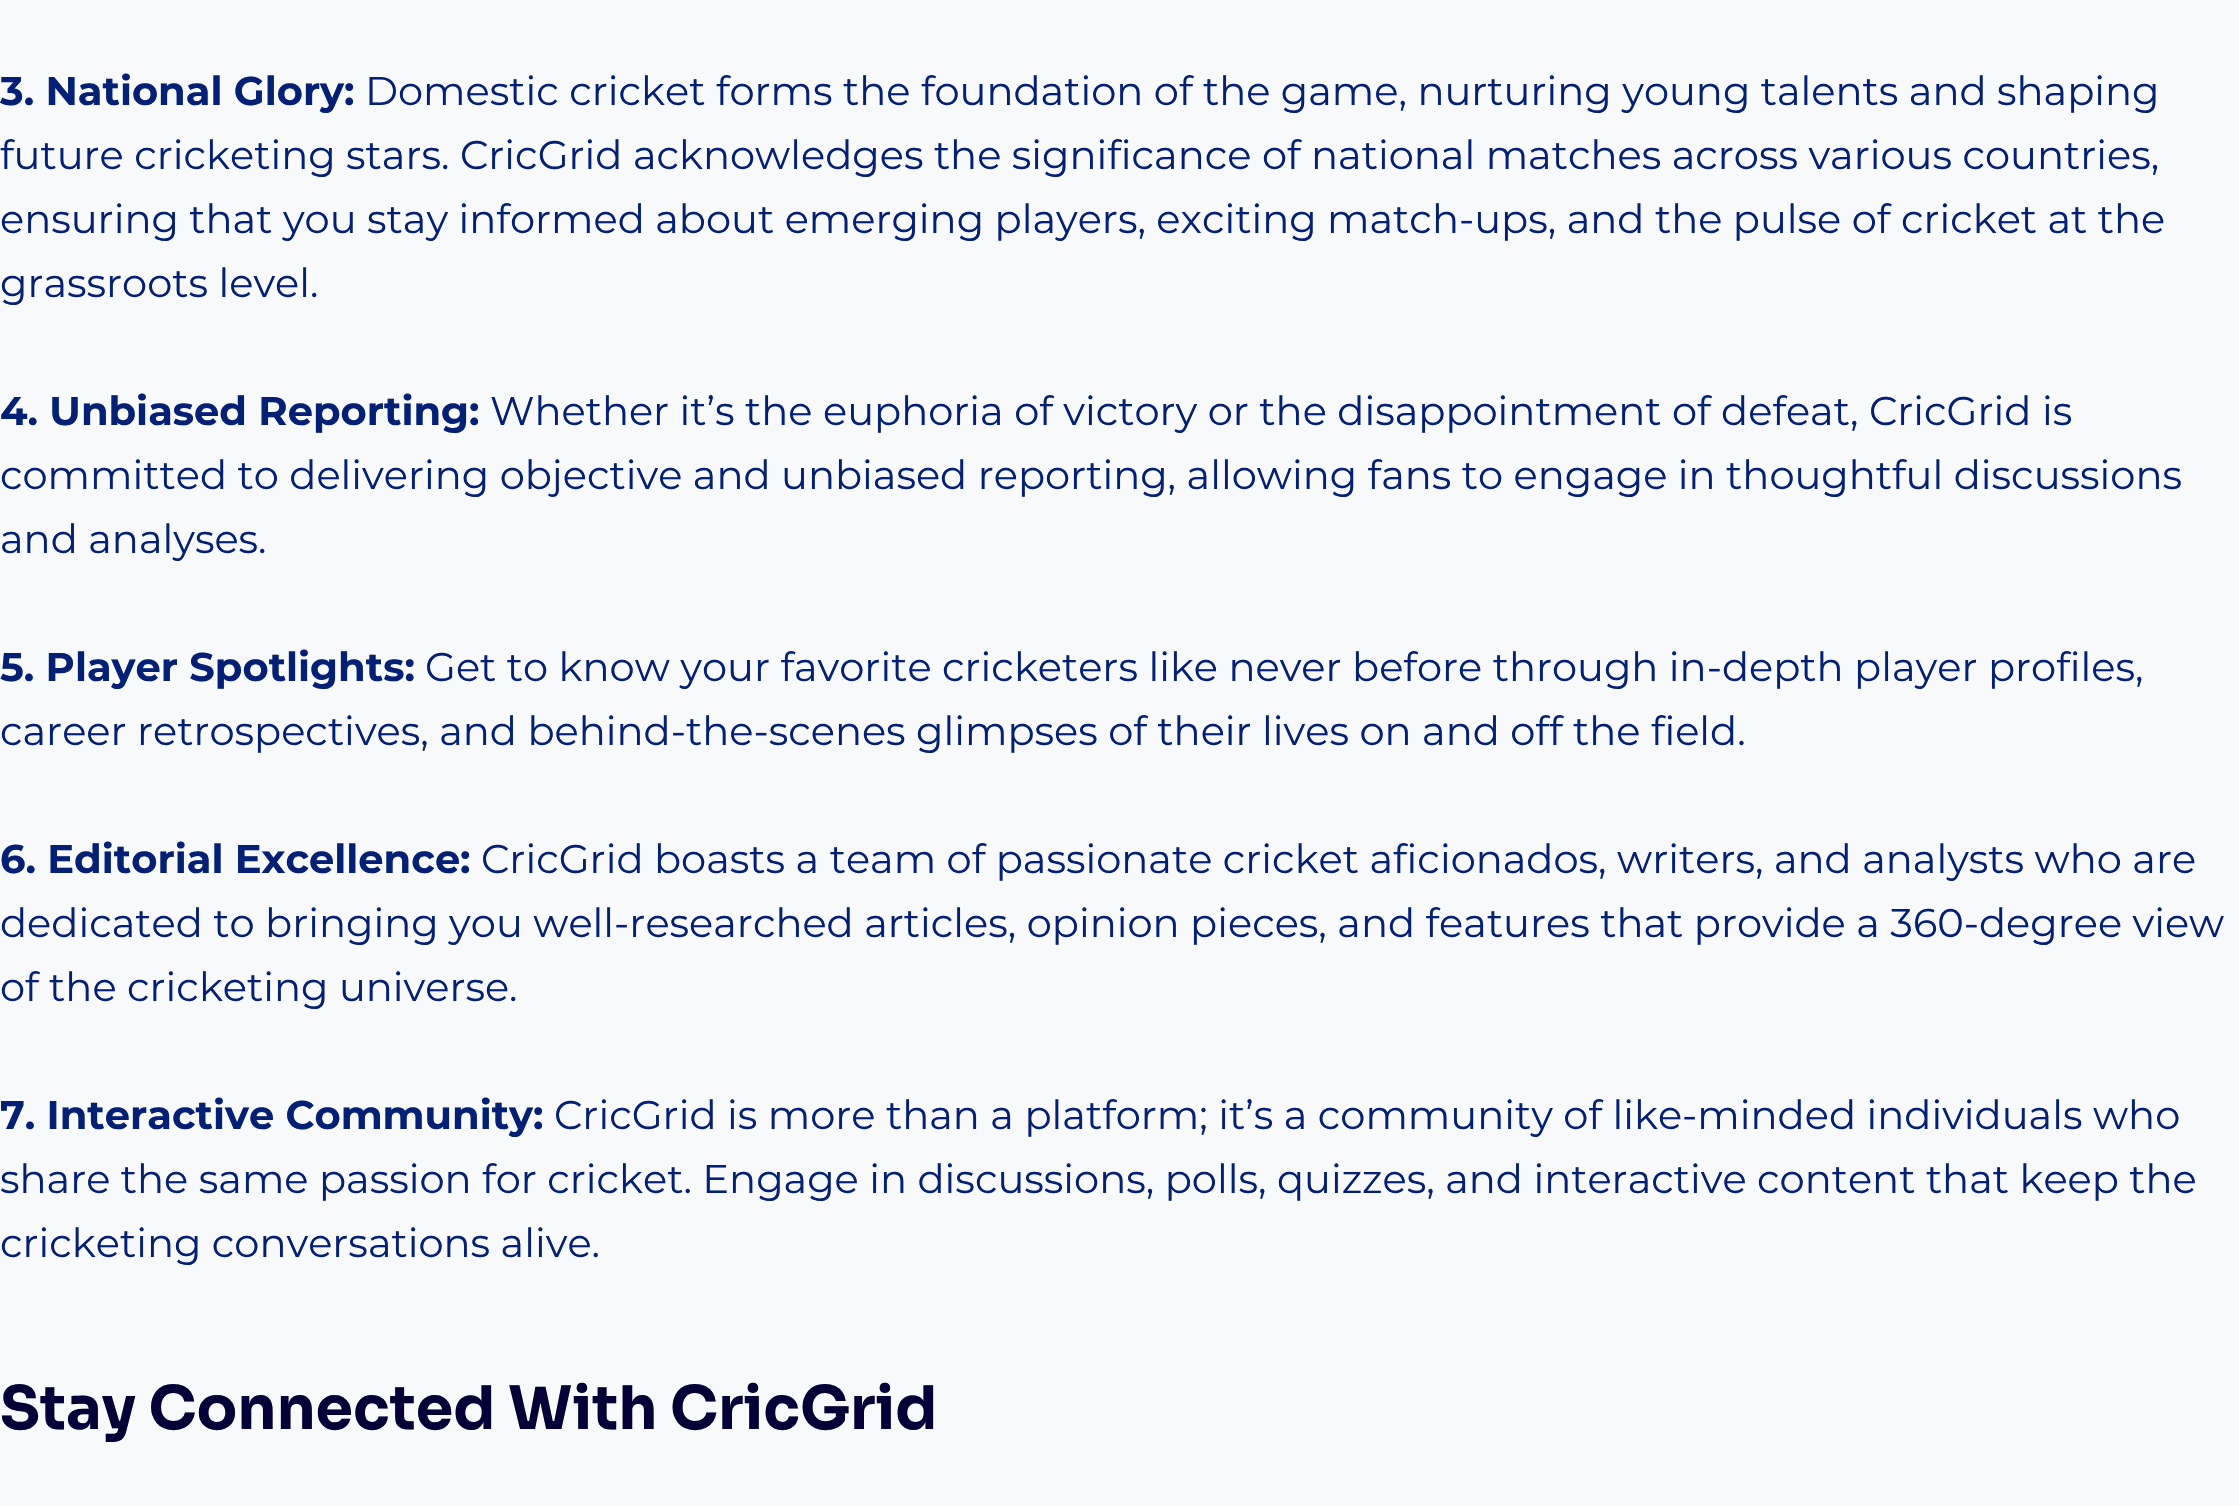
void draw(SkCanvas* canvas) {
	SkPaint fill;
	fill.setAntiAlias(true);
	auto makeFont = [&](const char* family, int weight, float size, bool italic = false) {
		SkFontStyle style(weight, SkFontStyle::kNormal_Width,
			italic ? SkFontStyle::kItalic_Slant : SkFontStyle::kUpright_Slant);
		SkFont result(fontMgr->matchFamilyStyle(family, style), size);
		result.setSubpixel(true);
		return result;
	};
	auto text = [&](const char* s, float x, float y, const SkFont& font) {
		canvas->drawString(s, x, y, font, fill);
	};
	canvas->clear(0xFFF8F9FA);
	auto font1 = makeFont("Montserrat", 700, 40);
	fill.setColor(0xFF032075);
	text("3. National Glory:", 0, 105, font1);
	auto font2 = makeFont("Montserrat", 400, 40);
	text("Domestic cricket forms the foundation of the game, nurturing young talents and shaping", 365, 105, font2);
	text("future cricketing stars. CricGrid acknowledges the significance of national matches across various countries,", 0, 169, font2);
	text("ensuring that you stay informed about emerging players, exciting match-ups, and the pulse of cricket at the", 0, 233, font2);
	text("grassroots level.", 0, 297, font2);
	text("4. Unbiased Reporting:", 0, 425, font1);
	text("Whether it’s the euphoria of victory or the disappointment of defeat, CricGrid is", 490, 425, font2);
	text("committed to delivering objective and unbiased reporting, allowing fans to engage in thoughtful discussions", 0, 489, font2);
	text("and analyses.", 0, 553, font2);
	text("5. Player Spotlights:", 0, 681, font1);
	text("Get to know your favorite cricketers like never before through in-depth player profiles,", 425, 681, font2);
	text("career retrospectives, and behind-the-scenes glimpses of their lives on and off the field.", 0, 745, font2);
	text("6. Editorial Excellence:", 0, 873, font1);
	text("CricGrid boasts a team of passionate cricket aficionados, writers, and analysts who are", 481, 873, font2);
	text("dedicated to bringing you well-researched articles, opinion pieces, and features that provide a 360-degree view", 0, 937, font2);
	text("of the cricketing universe.", 0, 1001, font2);
	text("7. Interactive Community:", 0, 1129, font1);
	text("CricGrid is more than a platform; it’s a community of like-minded individuals who", 554, 1129, font2);
	text("share the same passion for cricket. Engage in discussions, polls, quizzes, and interactive content that keep the", 0, 1193, font2);
	text("cricketing conversations alive.", 0, 1257, font2);
	auto font3 = makeFont("Sora", 700, 60);
	fill.setColor(0xFF040037);
	text("Stay Connected With CricGrid", 0, 1429, font3);
}
